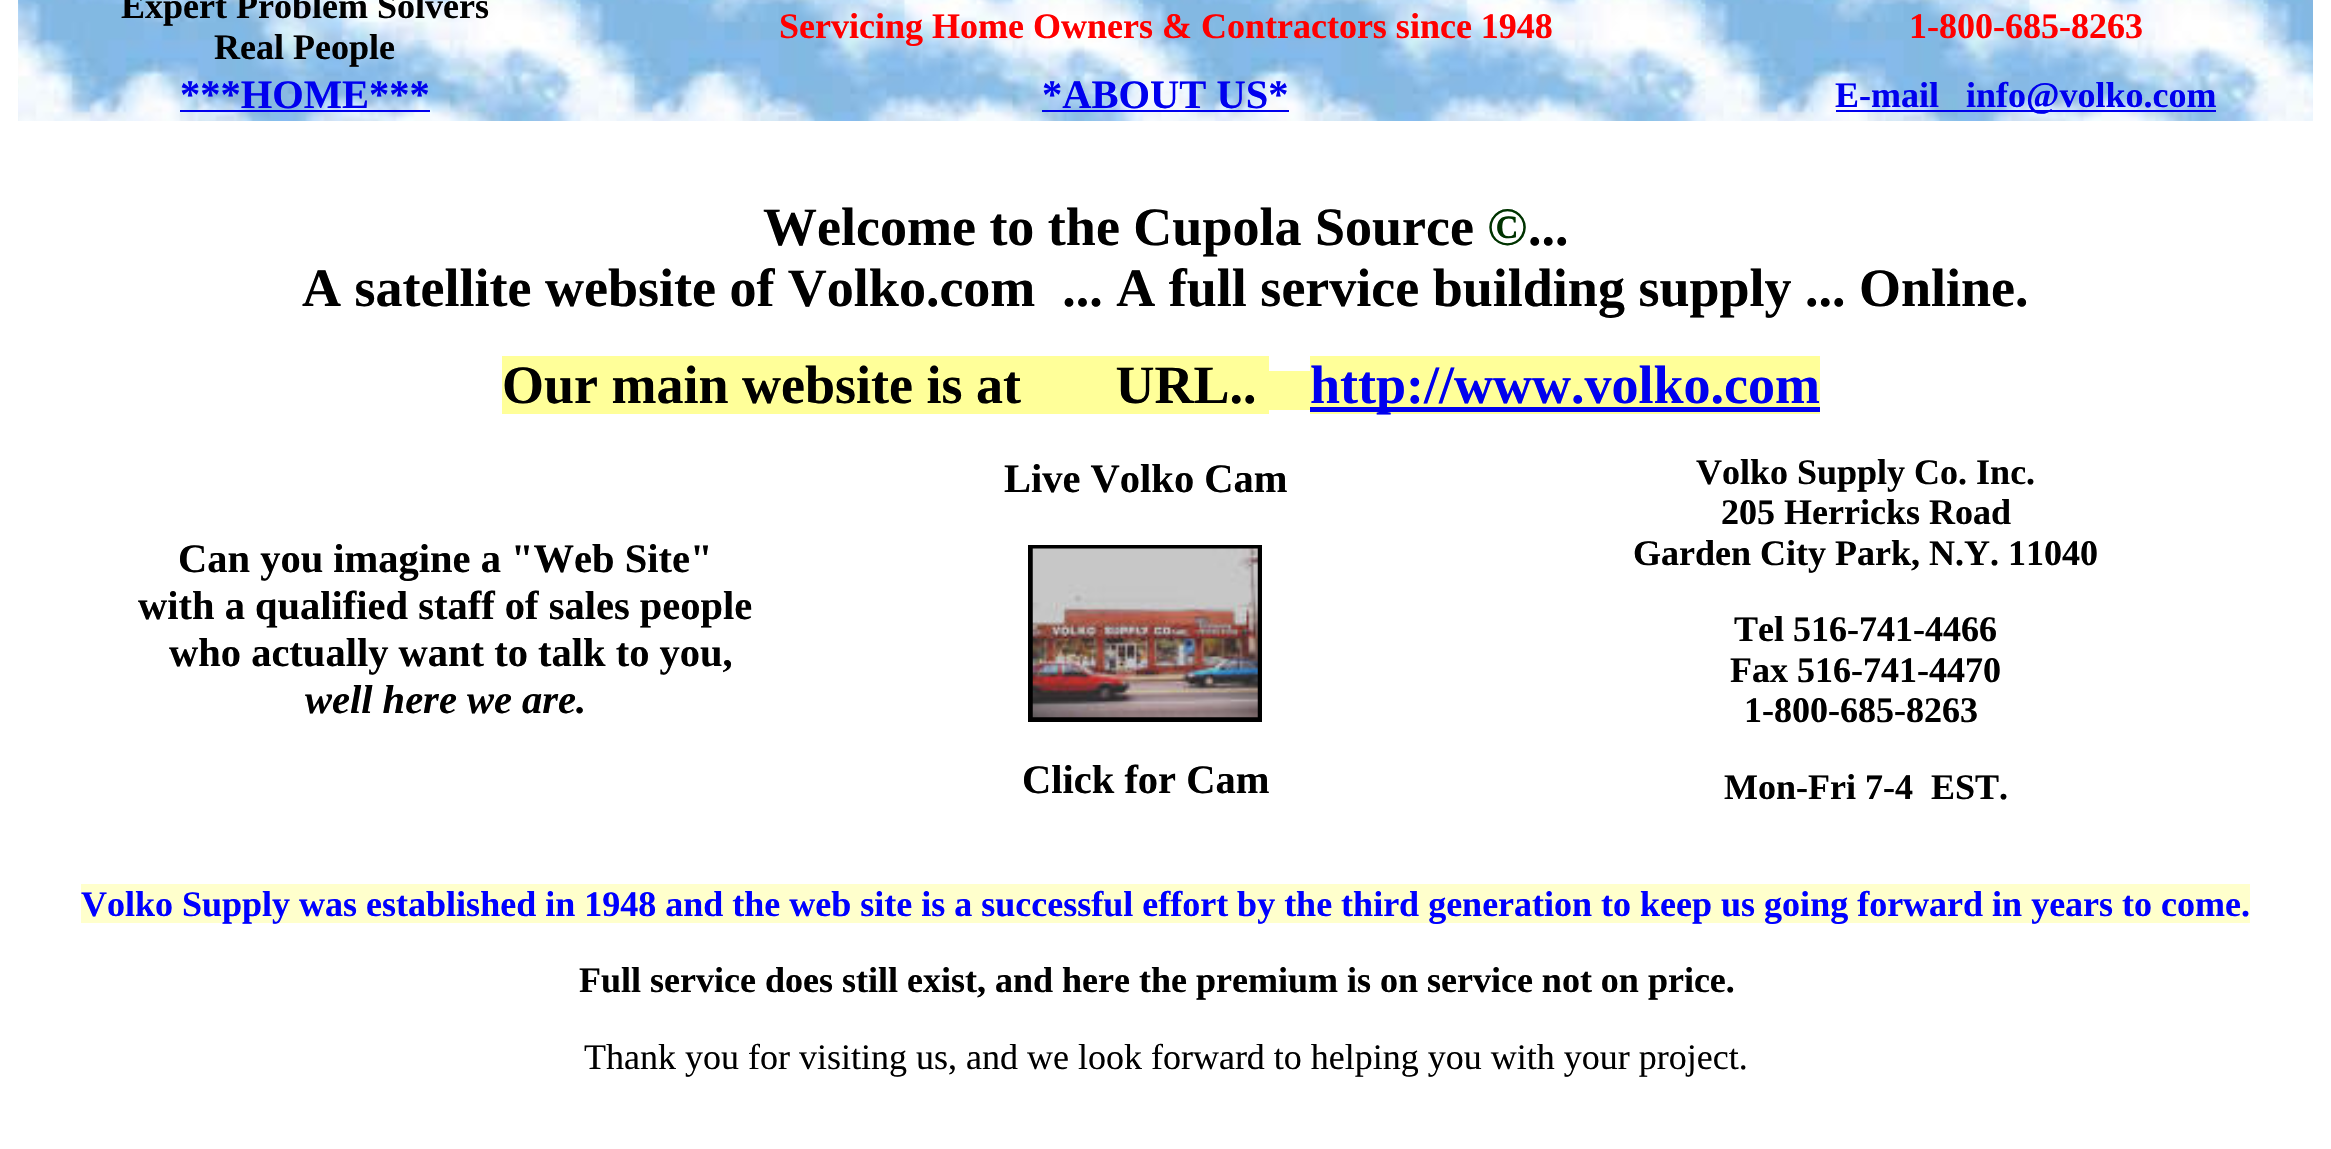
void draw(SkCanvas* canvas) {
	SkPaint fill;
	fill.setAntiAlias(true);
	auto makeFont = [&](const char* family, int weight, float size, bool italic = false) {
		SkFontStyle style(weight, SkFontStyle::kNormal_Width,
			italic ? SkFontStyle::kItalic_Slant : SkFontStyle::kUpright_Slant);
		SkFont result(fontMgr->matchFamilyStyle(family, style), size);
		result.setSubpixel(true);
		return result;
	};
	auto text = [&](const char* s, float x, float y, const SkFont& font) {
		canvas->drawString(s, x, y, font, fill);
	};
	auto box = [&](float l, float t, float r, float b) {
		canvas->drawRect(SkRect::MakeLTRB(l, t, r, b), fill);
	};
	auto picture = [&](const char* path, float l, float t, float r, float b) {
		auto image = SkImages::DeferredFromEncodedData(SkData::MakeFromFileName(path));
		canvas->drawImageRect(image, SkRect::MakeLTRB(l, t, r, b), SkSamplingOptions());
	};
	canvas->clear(0xFFFFFFFF);
	picture("image0.png", 18, 0, 2313, 121);
	fill.setColor(0xFF0000EE);
	box(180, 110, 430, 112);
	box(1042, 110, 1289, 112);
	box(1836, 110, 2216, 112);
	fill.setColor(0xFFFFFF99);
	box(502, 356, 1269, 414);
	box(1269, 371, 1310, 410);
	box(1310, 356, 1820, 414);
	fill.setColor(0xFF0000EE);
	box(1310, 407, 1820, 412);
	fill.setStyle(SkPaint::kStroke_Style);
	fill.setStrokeWidth(5);
	fill.setColor(0xFF000000);
	canvas->drawRect(SkRect::MakeLTRB(1030.5f, 547.5f, 1259.5f, 719.5f), fill);
	picture("image1.png", 1032, 548, 1258, 718);
	fill.setStyle(SkPaint::kFill_Style);
	fill.setColor(0xFFFFFFCC);
	box(81, 884, 2250, 923);
	auto font1 = makeFont("Liberation Serif", 700, 36);
	fill.setColor(0xFF000000);
	text("Expert Problem Solvers", 121, 18, font1);
	text("Real People", 214, 59, font1);
	fill.setColor(0xFFFF0000);
	text("Servicing Home Owners & Contractors since 1948", 779, 38, font1);
	text("1-800-685-8263", 1909, 38, font1);
	auto font2 = makeFont("Liberation Serif", 700, 40.5f);
	fill.setColor(0xFF0000EE);
	text("***HOME***", 180, 108, font2);
	text("*ABOUT US*", 1042, 108, font2);
	text("E-mail", 1835, 107, font1);
	text("info@volko.com", 1966, 107, font1);
	auto font3 = makeFont("Liberation Serif", 700, 54);
	fill.setColor(0xFF000000);
	text("Welcome to the Cupola Source", 763, 245, font3);
	fill.setColor(0xFF003300);
	text("©", 1487, 245, font3);
	fill.setColor(0xFF000000);
	text("...", 1528, 245, font3);
	text("A satellite website of Volko.com  ... A full service building supply ... Online.", 302, 306, font3);
	text("Our main website is at       URL..", 502, 403, font3);
	fill.setColor(0xFF0000EE);
	text("http://www.volko.com", 1310, 403, font3);
	fill.setColor(0xFF000000);
	text("Can you imagine a \"Web Site\"", 178, 572, font2);
	text("with a qualified staff of sales people", 138, 619, font2);
	text("who actually want to talk to you,", 169, 666, font2);
	auto font4 = makeFont("Liberation Serif", 700, 40.5f, true);
	text("well here we are.", 305, 713, font4);
	text("Live Volko Cam", 1004, 492, font2);
	text("Click for Cam", 1022, 793, font2);
	text("Volko Supply Co. Inc.", 1696, 484, font1);
	text("205 Herricks Road", 1721, 524, font1);
	text("Garden City Park, N.Y. 11040", 1633, 565, font1);
	text("Tel 516-741-4466", 1734, 641, font1);
	text("Fax 516-741-4470", 1730, 682, font1);
	text("1-800-685-8263", 1744, 722, font1);
	text("Mon-Fri 7-4  EST.", 1724, 799, font1);
	fill.setColor(0xFF0000FF);
	text("Volko Supply was established in 1948 and the web site is a successful effort by the third generation to keep us going forward in years to come.", 81, 916, font1);
	fill.setColor(0xFF000000);
	text("Full service does still exist, and here the premium is on service not on price.", 579, 992, font1);
	auto font5 = makeFont("Liberation Serif", 400, 36);
	text("Thank you for visiting us, and we look forward to helping you with your project.", 584, 1069, font5);
}
